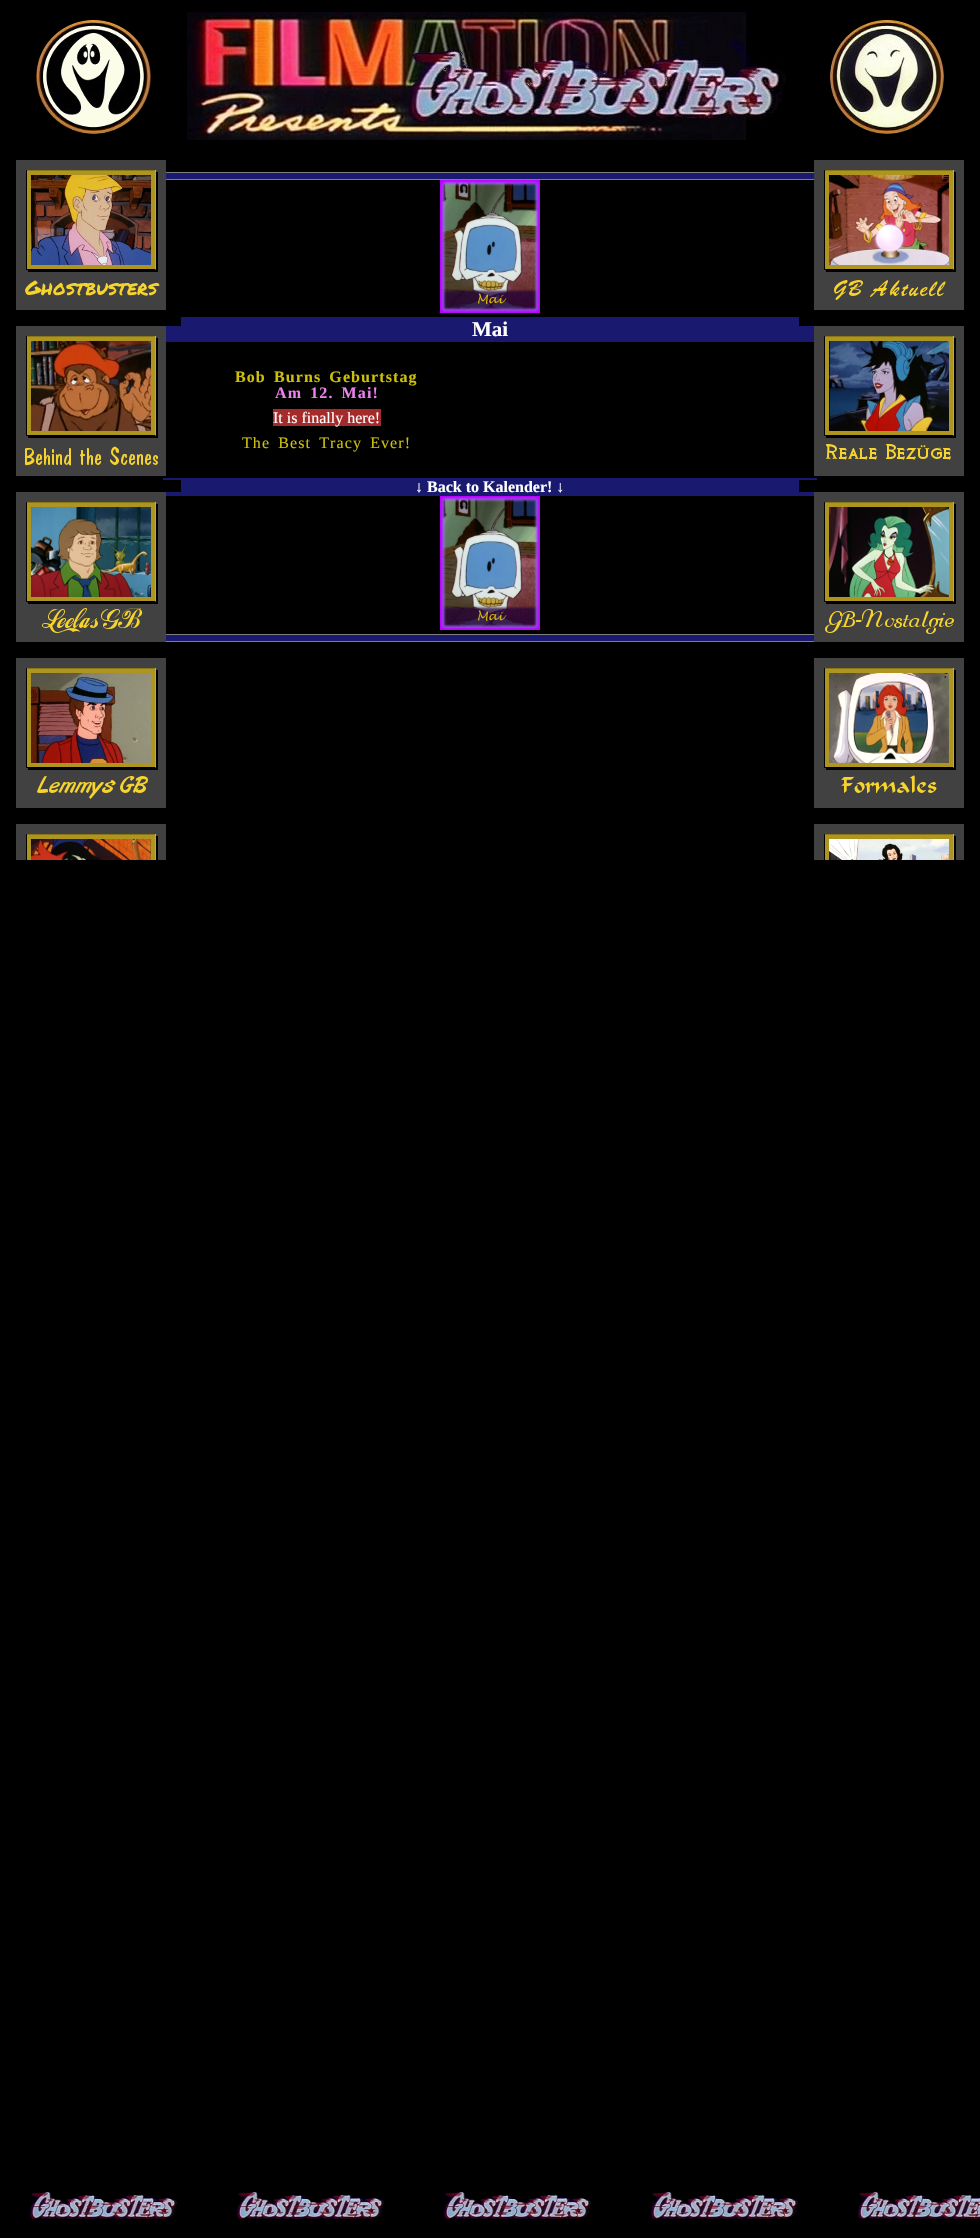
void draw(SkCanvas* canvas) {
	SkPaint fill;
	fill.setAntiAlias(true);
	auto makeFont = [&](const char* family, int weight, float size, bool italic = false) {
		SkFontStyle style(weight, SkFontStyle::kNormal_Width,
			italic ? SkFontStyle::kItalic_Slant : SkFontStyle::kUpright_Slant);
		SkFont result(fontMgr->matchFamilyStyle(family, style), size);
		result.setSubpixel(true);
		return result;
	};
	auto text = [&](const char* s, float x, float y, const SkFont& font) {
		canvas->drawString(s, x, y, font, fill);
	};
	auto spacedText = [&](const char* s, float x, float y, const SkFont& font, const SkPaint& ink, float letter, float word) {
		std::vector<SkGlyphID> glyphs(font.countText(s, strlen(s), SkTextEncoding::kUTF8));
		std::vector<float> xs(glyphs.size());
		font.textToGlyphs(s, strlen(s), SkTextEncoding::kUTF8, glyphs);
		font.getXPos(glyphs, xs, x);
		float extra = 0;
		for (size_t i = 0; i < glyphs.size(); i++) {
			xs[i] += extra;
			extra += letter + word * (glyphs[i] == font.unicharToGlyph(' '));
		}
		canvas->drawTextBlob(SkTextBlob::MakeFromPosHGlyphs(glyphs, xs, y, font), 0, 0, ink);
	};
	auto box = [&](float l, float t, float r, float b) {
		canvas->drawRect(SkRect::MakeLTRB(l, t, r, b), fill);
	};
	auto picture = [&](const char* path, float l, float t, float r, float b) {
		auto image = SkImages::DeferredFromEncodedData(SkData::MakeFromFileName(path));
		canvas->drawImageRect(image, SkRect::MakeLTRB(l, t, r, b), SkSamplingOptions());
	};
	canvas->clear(0xFF000000);
	picture("image0.png", 36, 20, 151, 134);
	picture("image1.png", 187, 12, 787, 140);
	picture("image2.png", 830, 20, 944, 134);
	fill.setColor(0xFF191970);
	canvas->drawRect(SkRect::MakeLTRB(163.5f, 172.5f, 816.5f, 179.5f), fill);
	fill.setStyle(SkPaint::kStroke_Style);
	fill.setStrokeWidth(1);
	fill.setColor(0xFF808080);
	canvas->drawRect(SkRect::MakeLTRB(163.5f, 172.5f, 816.5f, 179.5f), fill);
	picture("image3.png", 16, 160, 166, 310);
	fill.setStyle(SkPaint::kFill_Style);
	fill.setColor(0xFF191970);
	box(166, 317, 814, 342);
	fill.setColor(0xFF000000);
	box(166, 317, 181, 326);
	picture("image4.png", 16, 326, 166, 476);
	fill.setColor(0xFF191970);
	box(163, 478, 817, 496);
	fill.setColor(0xFF000000);
	box(163, 480, 181, 492);
	fill.setColor(0xFF191970);
	canvas->drawRect(SkRect::MakeLTRB(163.5f, 634.5f, 816.5f, 641.5f), fill);
	fill.setStyle(SkPaint::kStroke_Style);
	fill.setColor(0xFF808080);
	canvas->drawRect(SkRect::MakeLTRB(163.5f, 634.5f, 816.5f, 641.5f), fill);
	picture("image5.png", 16, 492, 166, 642);
	picture("image6.png", 16, 658, 166, 808);
	picture("image7.png", 16, 824, 166, 860);
	picture("image8.png", 440, 180, 540, 313);
	fill.setStyle(SkPaint::kFill_Style);
	fill.setColor(0xFFA52A2A);
	box(273, 409, 381, 426);
	picture("image9.png", 440, 496, 540, 630);
	picture("image10.png", 814, 160, 964, 310);
	fill.setColor(0xFF000000);
	box(799, 317, 814, 326);
	picture("image11.png", 814, 326, 964, 476);
	box(799, 480, 817, 492);
	picture("image12.png", 814, 492, 964, 642);
	picture("image13.png", 814, 658, 964, 808);
	picture("image14.png", 814, 824, 964, 860);
	picture("image15.png", 30, 2188, 980, 2219);
	auto font1 = makeFont("Liberation Serif", 700, 21);
	fill.setColor(0xFFFFFFFF);
	text("Mai", 472, 336, font1);
	auto font2 = makeFont("Liberation Serif", 700, 16);
	fill.setColor(0xFFCCC00C);
	spacedText("Bob Burns Geburtstag", 235, 382, font2, fill, 1.1f, 3);
	fill.setColor(0xFFEE82EE);
	spacedText("Am 12. Mai!", 275, 398, font2, fill, 1.1f, 3);
	auto font3 = makeFont("Liberation Serif", 400, 16);
	fill.setColor(0xFFFFFFFF);
	text("It is finally here!", 273, 423, font3);
	fill.setColor(0xFFCCC00C);
	spacedText("The Best Tracy Ever!", 242, 448, font3, fill, 1.1f, 3);
	fill.setColor(0xFFFFFFFF);
	text("↓ Back to Kalender! ↓", 415, 492, font2);
}
